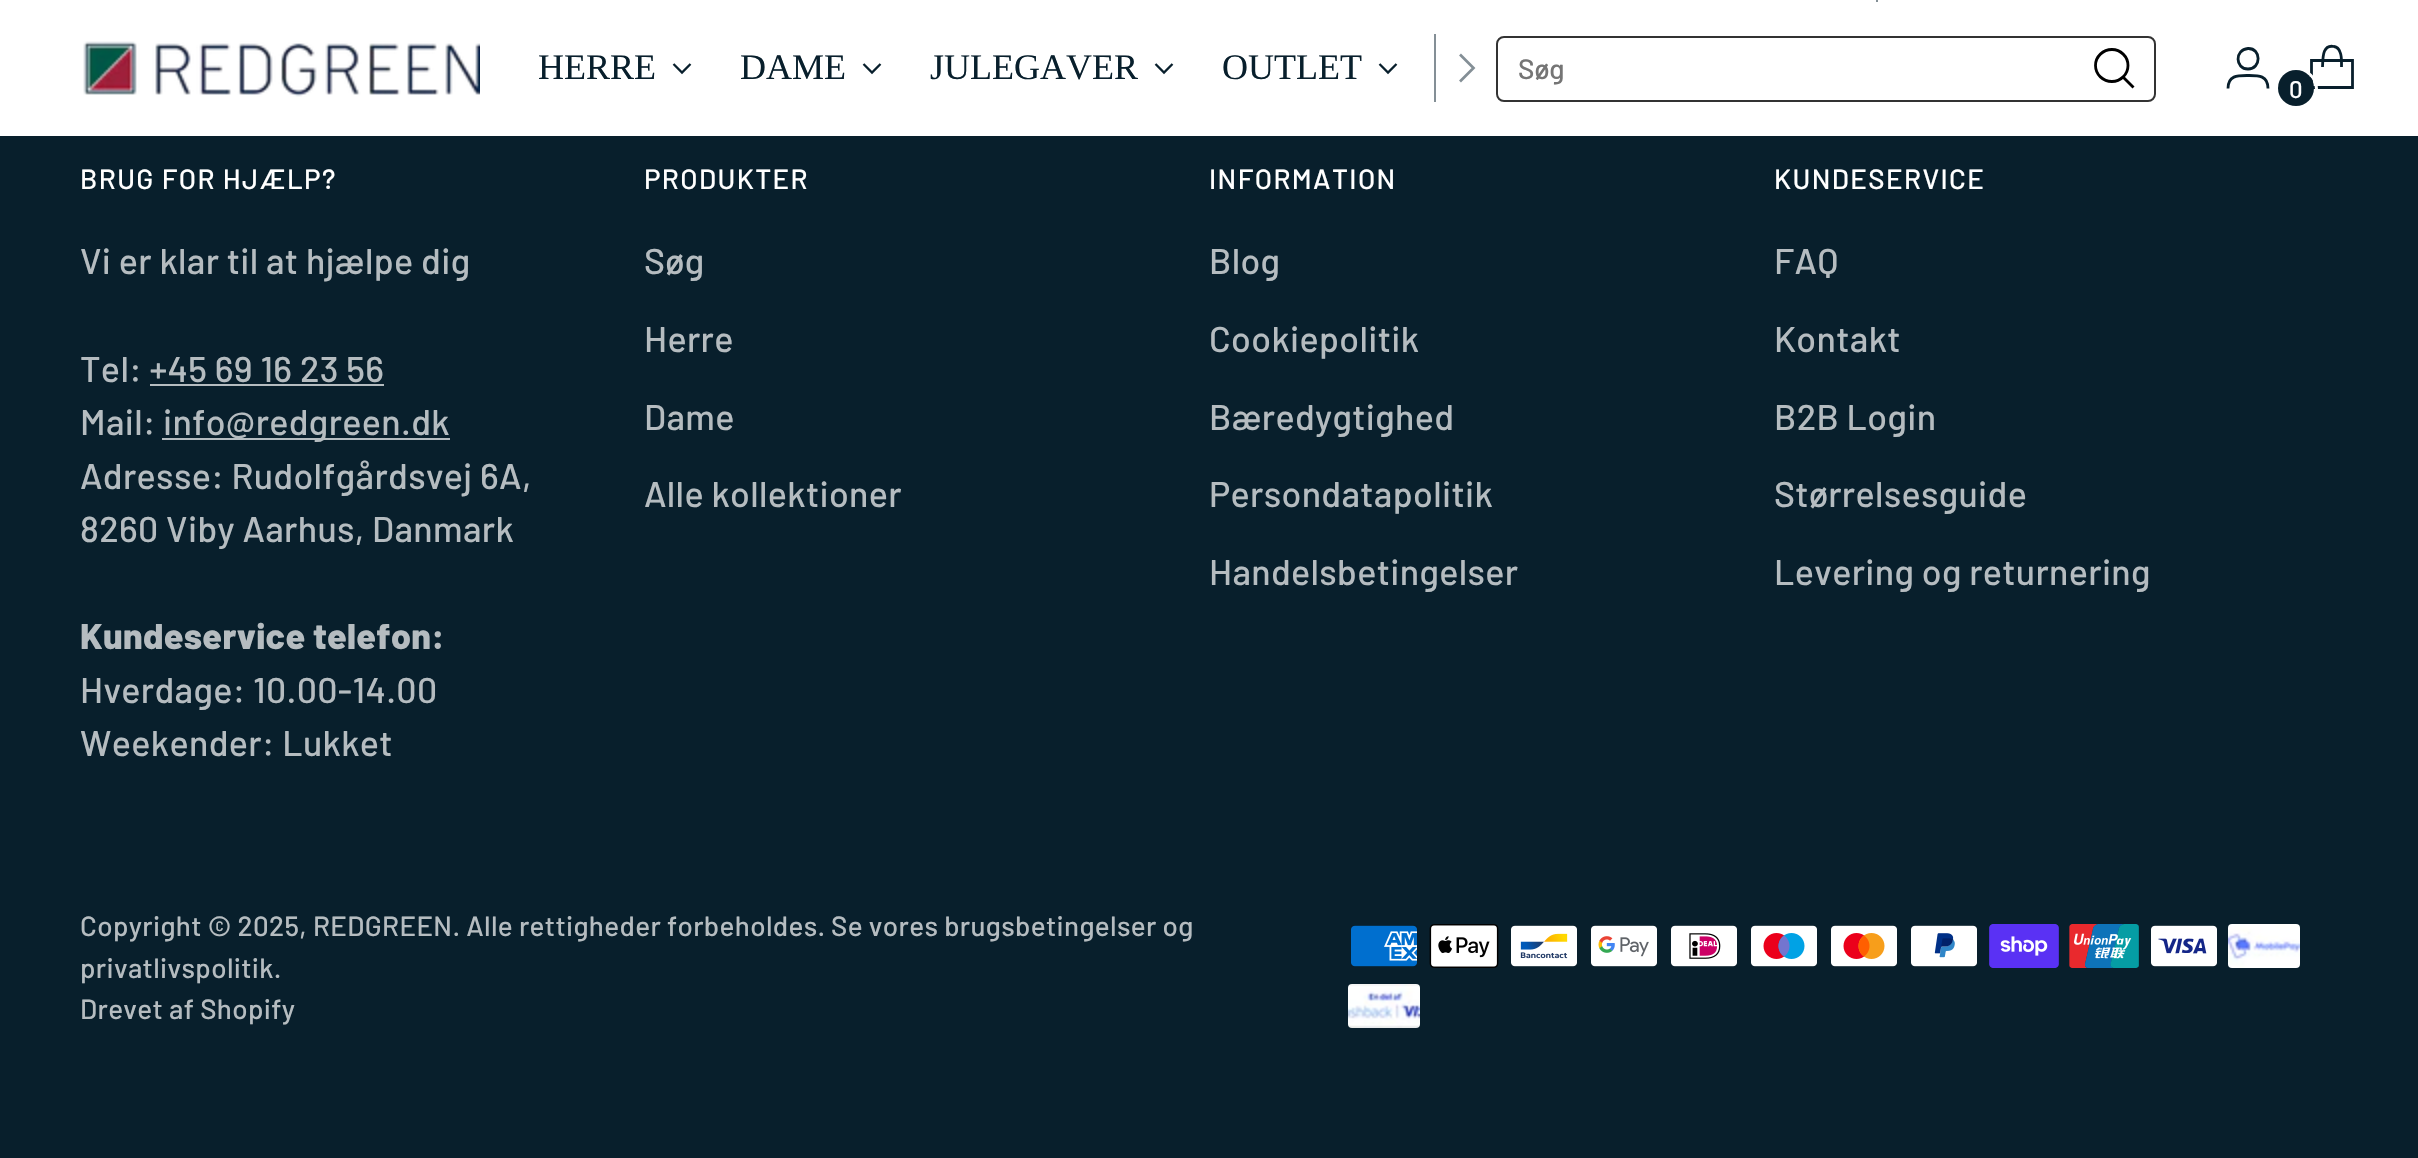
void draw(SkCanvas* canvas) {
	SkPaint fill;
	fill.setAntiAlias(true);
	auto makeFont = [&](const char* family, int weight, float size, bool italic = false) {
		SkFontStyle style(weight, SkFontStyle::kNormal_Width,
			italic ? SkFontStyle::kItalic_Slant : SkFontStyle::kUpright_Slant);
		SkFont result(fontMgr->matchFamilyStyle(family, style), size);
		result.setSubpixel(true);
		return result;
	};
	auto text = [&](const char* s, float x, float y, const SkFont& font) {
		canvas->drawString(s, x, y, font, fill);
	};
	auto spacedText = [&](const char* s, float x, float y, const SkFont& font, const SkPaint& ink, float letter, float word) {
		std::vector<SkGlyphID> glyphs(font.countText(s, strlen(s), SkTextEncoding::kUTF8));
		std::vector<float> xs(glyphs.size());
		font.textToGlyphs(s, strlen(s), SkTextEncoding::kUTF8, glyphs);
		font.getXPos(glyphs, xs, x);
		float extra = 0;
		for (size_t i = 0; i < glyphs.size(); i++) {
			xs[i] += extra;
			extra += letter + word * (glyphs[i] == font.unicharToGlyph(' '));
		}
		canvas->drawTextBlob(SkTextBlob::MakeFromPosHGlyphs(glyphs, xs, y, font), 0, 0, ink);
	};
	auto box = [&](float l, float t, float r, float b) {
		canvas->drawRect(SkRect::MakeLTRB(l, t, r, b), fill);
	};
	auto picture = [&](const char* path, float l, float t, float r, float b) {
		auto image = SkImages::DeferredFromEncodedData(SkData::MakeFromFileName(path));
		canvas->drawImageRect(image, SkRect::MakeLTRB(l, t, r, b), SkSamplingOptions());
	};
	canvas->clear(0xFF081F2C);
	fill.setColor(0xFFFFFFFF);
	box(0, 0, 2418, 136);
	fill.setColor(0xFF848F96);
	box(1876, 0, 1878, 2);
	picture("image0.png", 83, 41, 480, 97);
	fill.setStyle(SkPaint::kStroke_Style);
	fill.setStrokeWidth(2.3f);
	fill.setColor(0xFF081F2C);
	canvas->drawPath(SkPathBuilder().moveTo(673.5f, 64).lineTo(682, 72.5f).lineTo(690.5f, 64).detach(), fill);
	canvas->drawPath(SkPathBuilder().moveTo(863.5f, 64).lineTo(872, 72.5f).lineTo(880.5f, 64).detach(), fill);
	canvas->drawPath(SkPathBuilder().moveTo(1155.5f, 64).lineTo(1164, 72.5f).lineTo(1172.5f, 64).detach(), fill);
	canvas->drawPath(SkPathBuilder().moveTo(1379.5f, 64).lineTo(1388, 72.5f).lineTo(1396.5f, 64).detach(), fill);
	fill.setStyle(SkPaint::kFill_Style);
	fill.setColor(0xFF848F96);
	box(1434, 34, 1436, 102);
	fill.setStyle(SkPaint::kStroke_Style);
	fill.setStrokeWidth(2.7f);
	canvas->drawPath(SkPathBuilder().moveTo(1460, 81.5f).lineTo(1473.5f, 68).lineTo(1460, 54.5f).detach(), fill);
	fill.setStrokeWidth(2);
	fill.setColor(0xFF333333);
	canvas->drawRoundRect(SkRect::MakeLTRB(1497, 37, 2155, 101), 7, 7, fill);
	fill.setStrokeWidth(2.8f);
	fill.setStrokeCap(SkPaint::kRound_Cap);
	fill.setColor(0xFF000000);
	canvas->drawPath(SkPathBuilder().moveTo(2112, 81.5f).cubicTo(2120.5f, 81.5f, 2128, 74.5f, 2128, 65.5f).cubicTo(2128, 56.5f, 2120.5f, 49.5f, 2112, 49.5f).cubicTo(2103, 49.5f, 2095.5f, 56.5f, 2095.5f, 65.5f).cubicTo(2095.5f, 74.5f, 2103, 81.5f, 2112, 81.5f).close().detach(), fill);
	fill.setStrokeCap(SkPaint::kButt_Cap);
	canvas->drawPath(SkPathBuilder().moveTo(2123.5f, 77.5f).lineTo(2133.5f, 87.5f).detach(), fill);
	fill.setColor(0xFF081F2C);
	canvas->drawPath(SkPathBuilder().moveTo(2248, 69).cubicTo(2261.5f, 69, 2261.5f, 48, 2248, 48.5f).cubicTo(2234.5f, 49.5f, 2235, 69, 2248, 69).close().moveTo(2228, 88.5f).cubicTo(2228, 75, 2238, 75.5f, 2248, 75.5f).cubicTo(2258, 75.5f, 2268, 75, 2268, 88.5f).detach(), fill);
	fill.setStrokeJoin(SkPaint::kBevel_Join);
	canvas->drawPath(SkPathBuilder().moveTo(2341.5f, 67).cubicTo(2341.5f, 62, 2342, 56.5f, 2340, 52).cubicTo(2339, 49, 2337, 47, 2334, 46.5f).cubicTo(2322, 44, 2323, 59, 2322.5f, 67).detach(), fill);
	fill.setStrokeJoin(SkPaint::kMiter_Join);
	canvas->drawPath(SkPathBuilder().moveTo(2352.5f, 87.5f).lineTo(2352.5f, 60.5f).lineTo(2311.5f, 60.5f).lineTo(2311.5f, 87.5f).close().detach(), fill);
	fill.setStrokeWidth(3);
	fill.setColor(0xFFFFFFFF);
	canvas->drawCircle(2297, 89, 19.5f, fill);
	fill.setStyle(SkPaint::kFill_Style);
	fill.setColor(0xFF081F2C);
	canvas->drawCircle(2296, 88, 18, fill);
	fill.setColor(0xFFB5BCC0);
	box(150, 384, 384, 386);
	box(162, 438, 450, 440);
	picture("image1.png", 1351, 925, 1417, 967);
	picture("image2.png", 1429, 924, 1499, 968);
	picture("image3.png", 1511, 925, 1577, 967);
	picture("image4.png", 1591, 925, 1657, 967);
	picture("image5.png", 1671, 925, 1737, 967);
	picture("image6.png", 1751, 925, 1817, 967);
	picture("image7.png", 1831, 925, 1897, 967);
	picture("image8.png", 1911, 925, 1977, 967);
	picture("image9.png", 1989, 924, 2059, 968);
	picture("image10.png", 2069, 924, 2139, 968);
	picture("image11.png", 2151, 925, 2217, 967);
	picture("image12.png", 2228, 924, 2300, 968);
	picture("image13.png", 1348, 984, 1420, 1028);
	auto font1 = makeFont("Liberation Serif", 400, 36);
	fill.setColor(0xFF081F2C);
	text("HERRE", 538, 79, font1);
	text("DAME", 740, 79, font1);
	text("JULEGAVER", 930, 79, font1);
	text("OUTLET", 1222, 79, font1);
	auto font2 = makeFont("Barlow", 500, 28);
	fill.setColor(0xFF757575);
	text("Søg", 1518, 79, font2);
	auto font3 = makeFont("Barlow", 500, 24);
	fill.setColor(0xFFFFFFFF);
	spacedText("0", 2289, 98, font3, fill, 0.35f, 0);
	auto font4 = makeFont("Barlow", 500, 27.75f);
	spacedText("BRUG FOR HJÆLP?", 80, 189, font4, fill, 1.4f, 0);
	auto font5 = makeFont("Barlow", 500, 35.75f);
	fill.setColor(0xFFB5BCC0);
	spacedText("Vi er klar til at hjælpe dig", 80, 274, font5, fill, 0.35f, 0);
	spacedText("Tel: +45 69 16 23 56", 80, 382, font5, fill, 0.35f, 0);
	spacedText("Mail:", 80, 435, font5, fill, 0.35f, 0);
	spacedText("info@redgreen.dk", 163, 435, font5, fill, 0.35f, 0);
	spacedText("Adresse: Rudolfgårdsvej 6A,", 80, 489, font5, fill, 0.35f, 0);
	spacedText("8260 Viby Aarhus, Danmark", 80, 542, font5, fill, 0.35f, 0);
	auto font6 = makeFont("Barlow", 800, 35.75f);
	spacedText("Kundeservice telefon:", 80, 649, font6, fill, 0.35f, 0);
	spacedText("Hverdage: 10.00-14.00", 80, 703, font5, fill, 0.35f, 0);
	spacedText("Weekender: Lukket", 80, 756, font5, fill, 0.35f, 0);
	fill.setColor(0xFFFFFFFF);
	spacedText("PRODUKTER", 644, 189, font4, fill, 1.4f, 0);
	fill.setColor(0xFFB5BCC0);
	spacedText("Søg", 644, 274, font5, fill, 0.35f, 0);
	spacedText("Herre", 644, 352, font5, fill, 0.35f, 0);
	spacedText("Dame", 644, 430, font5, fill, 0.35f, 0);
	spacedText("Alle kollektioner", 644, 507, font5, fill, 0.35f, 0);
	fill.setColor(0xFFFFFFFF);
	spacedText("INFORMATION", 1209, 189, font4, fill, 1.4f, 0);
	fill.setColor(0xFFB5BCC0);
	spacedText("Blog", 1209, 274, font5, fill, 0.35f, 0);
	spacedText("Cookiepolitik", 1209, 352, font5, fill, 0.35f, 0);
	spacedText("Bæredygtighed", 1209, 430, font5, fill, 0.35f, 0);
	spacedText("Persondatapolitik", 1209, 507, font5, fill, 0.35f, 0);
	spacedText("Handelsbetingelser", 1209, 585, font5, fill, 0.35f, 0);
	fill.setColor(0xFFFFFFFF);
	spacedText("KUNDESERVICE", 1774, 189, font4, fill, 1.4f, 0);
	fill.setColor(0xFFB5BCC0);
	spacedText("FAQ", 1774, 274, font5, fill, 0.35f, 0);
	spacedText("Kontakt", 1774, 352, font5, fill, 0.35f, 0);
	spacedText("B2B Login", 1774, 430, font5, fill, 0.35f, 0);
	spacedText("Størrelsesguide", 1774, 507, font5, fill, 0.35f, 0);
	spacedText("Levering og returnering", 1774, 585, font5, fill, 0.35f, 0);
	spacedText("Copyright © 2025, REDGREEN. Alle rettigheder forbeholdes.", 80, 936, font4, fill, 0.35f, 0);
	spacedText("Se vores brugsbetingelser og", 831, 936, font4, fill, 0.35f, 0);
	spacedText("privatlivspolitik.", 80, 978, font4, fill, 0.35f, 0);
	spacedText("Drevet af Shopify", 80, 1019, font4, fill, 0.35f, 0);
}
